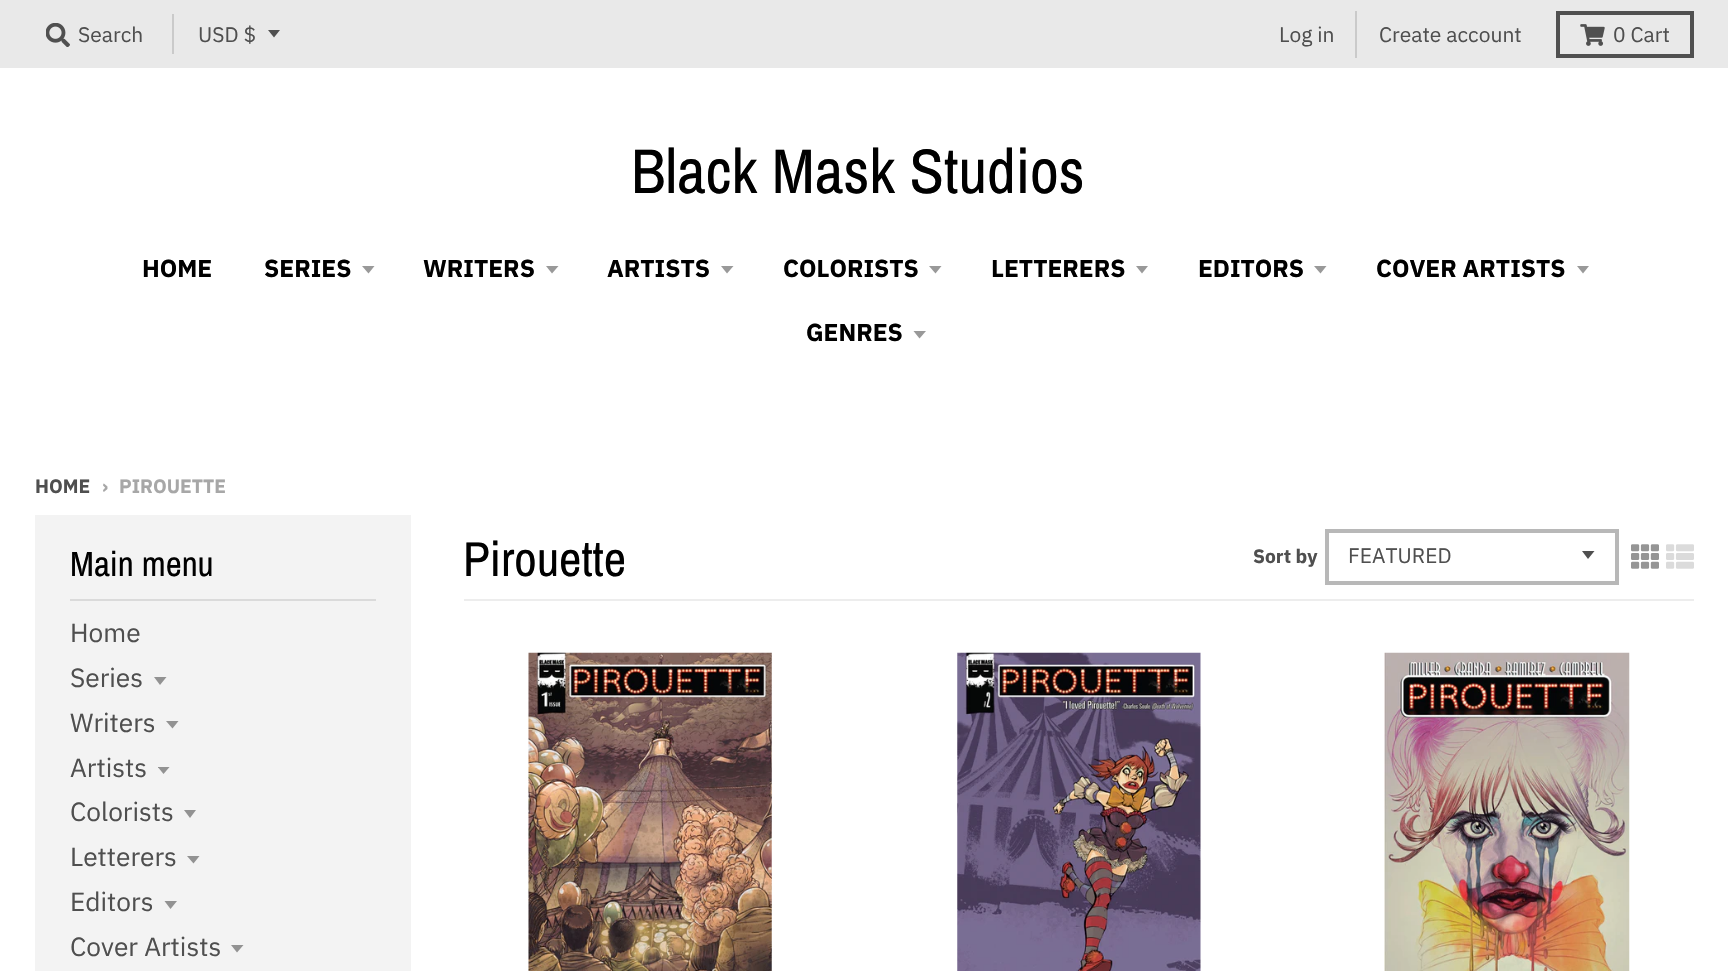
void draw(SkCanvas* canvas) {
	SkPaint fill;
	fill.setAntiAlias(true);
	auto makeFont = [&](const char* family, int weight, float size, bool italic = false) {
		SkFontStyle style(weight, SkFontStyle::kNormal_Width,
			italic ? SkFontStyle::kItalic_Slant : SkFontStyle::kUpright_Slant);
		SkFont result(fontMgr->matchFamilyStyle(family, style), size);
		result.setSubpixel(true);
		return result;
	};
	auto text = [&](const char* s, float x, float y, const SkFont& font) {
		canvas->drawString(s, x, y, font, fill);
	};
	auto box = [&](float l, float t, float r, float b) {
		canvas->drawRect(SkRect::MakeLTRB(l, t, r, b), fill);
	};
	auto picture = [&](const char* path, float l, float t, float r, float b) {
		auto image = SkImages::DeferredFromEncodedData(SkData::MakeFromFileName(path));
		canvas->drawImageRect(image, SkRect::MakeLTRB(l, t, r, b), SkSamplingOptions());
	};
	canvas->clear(0xFFFFFFFF);
	fill.setColor(0xFFE9E9E9);
	box(0, 0, 1728, 68);
	picture("image0.png", 46, 23, 70, 47);
	fill.setColor(0xFFCACACA);
	box(172, 14, 174, 54);
	fill.setColor(0xFF505050);
	canvas->drawPath(SkPathBuilder().moveTo(268, 30).lineTo(274, 37.5f).lineTo(280, 30).close().detach(), fill);
	fill.setColor(0xFFCACACA);
	box(1355, 11, 1357, 58);
	fill.setStyle(SkPaint::kStroke_Style);
	fill.setStrokeWidth(4);
	fill.setColor(0xFF505050);
	canvas->drawRect(SkRect::MakeLTRB(1558, 13, 1692, 56), fill);
	picture("image1.png", 1580, 24, 1605, 46);
	fill.setStyle(SkPaint::kFill_Style);
	fill.setColor(0xFF999999);
	canvas->drawPath(SkPathBuilder().moveTo(362, 266).lineTo(368.5f, 273.5f).lineTo(374.5f, 266).close().detach(), fill);
	canvas->drawPath(SkPathBuilder().moveTo(546, 266).lineTo(552, 273.5f).lineTo(558.5f, 266).close().detach(), fill);
	canvas->drawPath(SkPathBuilder().moveTo(721, 266).lineTo(727, 273.5f).lineTo(733.5f, 266).close().detach(), fill);
	canvas->drawPath(SkPathBuilder().moveTo(929, 266).lineTo(935.5f, 273.5f).lineTo(941.5f, 266).close().detach(), fill);
	canvas->drawPath(SkPathBuilder().moveTo(1136, 266).lineTo(1142, 273.5f).lineTo(1148, 266).close().detach(), fill);
	canvas->drawPath(SkPathBuilder().moveTo(1314, 266).lineTo(1320.5f, 273.5f).lineTo(1326.5f, 266).close().detach(), fill);
	canvas->drawPath(SkPathBuilder().moveTo(1577, 266).lineTo(1583, 273.5f).lineTo(1589, 266).close().detach(), fill);
	canvas->drawPath(SkPathBuilder().moveTo(913.5f, 331).lineTo(919.5f, 338.5f).lineTo(926, 331).close().detach(), fill);
	fill.setColor(0xFFF3F3F3);
	box(35, 515, 411, 971);
	fill.setColor(0xFFDADADA);
	box(70, 599, 376, 601);
	fill.setColor(0xFF929292);
	canvas->drawPath(SkPathBuilder().moveTo(154, 677).lineTo(160, 685).lineTo(166.5f, 677).close().detach(), fill);
	canvas->drawPath(SkPathBuilder().moveTo(166, 721).lineTo(172.5f, 728.5f).lineTo(178.5f, 721).close().detach(), fill);
	canvas->save();
	canvas->clipRect(SkRect::MakeLTRB(158, 767, 172, 775));
	canvas->drawPath(SkPathBuilder().moveTo(157.5f, 766.5f).lineTo(163.5f, 774).lineTo(170, 766.5f).close().detach(), fill);
	canvas->restore();
	canvas->drawPath(SkPathBuilder().moveTo(184, 810).lineTo(190, 818).lineTo(196, 810).close().detach(), fill);
	canvas->drawPath(SkPathBuilder().moveTo(187, 856).lineTo(193.5f, 863.5f).lineTo(199.5f, 856).close().detach(), fill);
	canvas->drawPath(SkPathBuilder().moveTo(164.5f, 901).lineTo(170.5f, 909).lineTo(177, 901).close().detach(), fill);
	canvas->drawPath(SkPathBuilder().moveTo(231, 945).lineTo(237, 952.5f).lineTo(243.5f, 945).close().detach(), fill);
	fill.setColor(0xFFEDEDED);
	box(464, 599, 1694, 601);
	fill.setColor(0xFF4F4F4F);
	canvas->drawPath(SkPathBuilder().moveTo(1582, 551).lineTo(1588, 559).lineTo(1594.5f, 551).close().detach(), fill);
	fill.setStyle(SkPaint::kStroke_Style);
	fill.setColor(0xFFB8B8B8);
	canvas->drawRect(SkRect::MakeLTRB(1327, 531, 1617, 583), fill);
	picture("image2.png", 1631, 544, 1659, 569);
	picture("image3.png", 1666, 544, 1694, 569);
	picture("image4.png", 528, 652, 772, 971);
	picture("image5.png", 957, 652, 1201, 971);
	picture("image6.png", 1384, 652, 1630, 971);
	auto font1 = makeFont("IBM Plex Sans", 400, 21);
	fill.setStyle(SkPaint::kFill_Style);
	fill.setColor(0xFF4F4F4F);
	text("Search", 78, 42, font1);
	text("USD $", 198, 42, font1);
	text("Log in", 1279, 42, font1);
	text("Create account", 1379, 42, font1);
	text("0 Cart", 1613, 42, font1);
	auto font2 = makeFont("Archivo Narrow", 400, 63);
	fill.setColor(0xFF000000);
	text("Black Mask Studios", 631, 193, font2);
	auto font3 = makeFont("IBM Plex Sans", 700, 24.5f);
	text("HOME", 142, 277, font3);
	text("SERIES", 264, 277, font3);
	text("WRITERS", 423, 277, font3);
	text("ARTISTS", 607, 277, font3);
	text("COLORISTS", 783, 277, font3);
	text("LETTERERS", 991, 277, font3);
	text("EDITORS", 1198, 277, font3);
	text("COVER ARTISTS", 1376, 277, font3);
	text("GENRES", 806, 341, font3);
	auto font4 = makeFont("IBM Plex Sans", 700, 19.25f);
	fill.setColor(0xFF4F4F4F);
	text("HOME", 35, 493, font4);
	fill.setColor(0xFFA7A7A7);
	text("›", 102, 493, font4);
	text("PIROUETTE", 119, 493, font4);
	auto font5 = makeFont("Archivo Narrow", 400, 35);
	fill.setColor(0xFF000000);
	text("Main menu", 70, 576, font5);
	auto font6 = makeFont("IBM Plex Sans", 400, 26.25f);
	fill.setColor(0xFF4F4F4F);
	text("Home", 70, 642, font6);
	text("Series", 70, 687, font6);
	text("Writers", 70, 732, font6);
	text("Artists", 70, 777, font6);
	text("Colorists", 70, 821, font6);
	text("Letterers", 70, 866, font6);
	text("Editors", 70, 911, font6);
	text("Cover Artists", 70, 956, font6);
	auto font7 = makeFont("Archivo Narrow", 400, 49);
	fill.setColor(0xFF000000);
	text("Pirouette", 463, 576, font7);
	fill.setColor(0xFF4F4F4F);
	text("Sort by", 1253, 563, font4);
	text("FEATURED", 1348, 563, font1);
}
